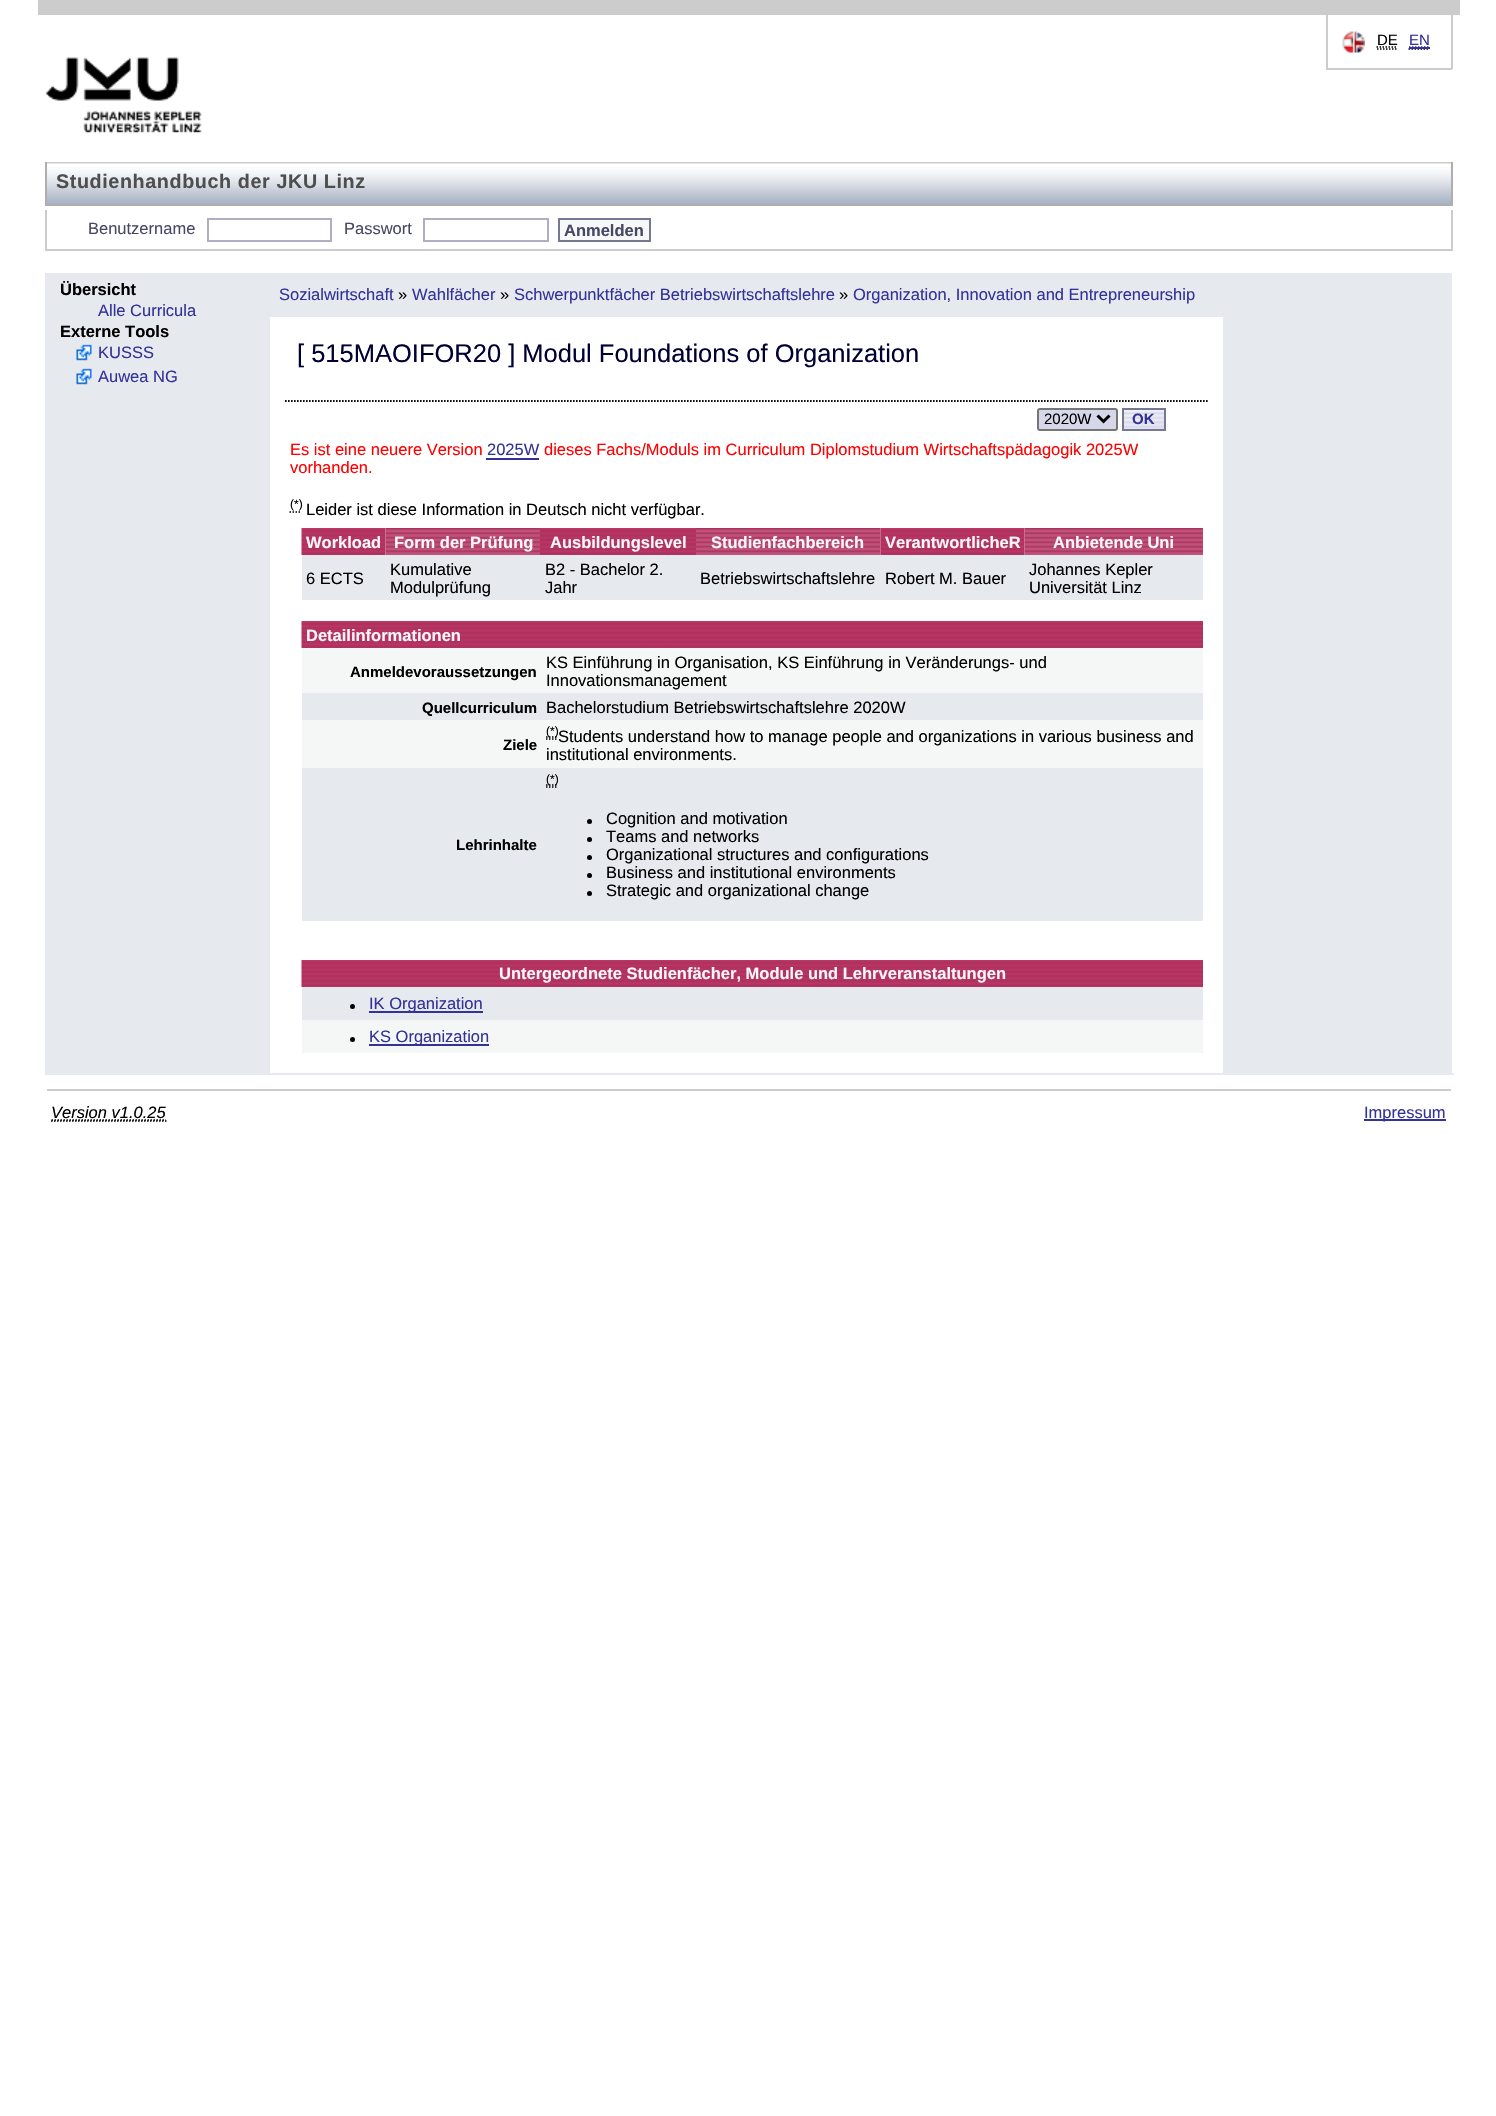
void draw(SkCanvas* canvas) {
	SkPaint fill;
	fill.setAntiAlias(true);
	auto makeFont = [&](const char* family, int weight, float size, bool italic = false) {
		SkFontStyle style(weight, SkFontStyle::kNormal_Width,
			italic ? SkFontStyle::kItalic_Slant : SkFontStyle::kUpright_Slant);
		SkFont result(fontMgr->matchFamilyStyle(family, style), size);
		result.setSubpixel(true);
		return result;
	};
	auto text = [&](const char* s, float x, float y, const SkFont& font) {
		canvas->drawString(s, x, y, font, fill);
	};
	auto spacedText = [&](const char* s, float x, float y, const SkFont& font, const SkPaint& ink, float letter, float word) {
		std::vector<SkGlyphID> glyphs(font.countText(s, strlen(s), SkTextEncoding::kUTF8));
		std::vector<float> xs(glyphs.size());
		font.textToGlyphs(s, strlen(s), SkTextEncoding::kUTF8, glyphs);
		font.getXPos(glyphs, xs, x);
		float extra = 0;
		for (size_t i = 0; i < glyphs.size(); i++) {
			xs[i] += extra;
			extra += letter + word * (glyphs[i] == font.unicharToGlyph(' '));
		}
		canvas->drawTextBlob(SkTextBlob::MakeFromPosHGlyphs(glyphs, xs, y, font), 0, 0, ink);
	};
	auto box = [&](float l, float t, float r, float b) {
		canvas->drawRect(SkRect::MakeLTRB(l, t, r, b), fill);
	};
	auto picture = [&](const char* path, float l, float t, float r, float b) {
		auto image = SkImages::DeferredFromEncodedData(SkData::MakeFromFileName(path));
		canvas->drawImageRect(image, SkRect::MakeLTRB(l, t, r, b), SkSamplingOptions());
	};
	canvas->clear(0xFFFFFFFF);
	fill.setColor(0xFFCCCCCC);
	box(38, 0, 1460, 15);
	box(1451, 15, 1453, 69);
	box(1326, 68, 1452, 70);
	box(1326, 15, 1328, 69);
	picture("image0.png", 1342, 31, 1365, 53);
	fill.setStyle(SkPaint::kStroke_Style);
	fill.setStrokeWidth(1.5f);
	fill.setColor(0xFF000000);
	fill.setPathEffect(SkDashPathEffect::Make({{1.5f, 1.5f}}, 0));
	canvas->drawPath(SkPathBuilder().moveTo(1377, 49).lineTo(1396.5f, 49).moveTo(1376.5f, 47).lineTo(1397, 47).detach(), fill);
	fill.setPathEffect(nullptr);
	fill.setPathEffect(SkDashPathEffect::Make({{1.5f, 1.5f}}, 0));
	canvas->drawPath(SkPathBuilder().moveTo(1408.5f, 49).lineTo(1429.5f, 49).detach(), fill);
	fill.setPathEffect(nullptr);
	fill.setColor(0xFF333298);
	fill.setPathEffect(SkDashPathEffect::Make({{1.5f, 1.5f}}, 0));
	canvas->drawPath(SkPathBuilder().moveTo(1409, 47).lineTo(1429.5f, 47).detach(), fill);
	fill.setPathEffect(nullptr);
	fill.setStyle(SkPaint::kFill_Style);
	box(1409, 47, 1430, 49);
	picture("image1.png", 45, 57, 202, 134);
	picture("image2.png", 47, 162, 1451, 204);
	fill.setColor(0xFFAEAEAE);
	box(1451, 162, 1453, 206);
	box(45, 204, 1452, 206);
	box(45, 162, 47, 206);
	fill.setColor(0xFFCCCCCC);
	box(1451, 210, 1453, 251);
	box(45, 249, 1452, 251);
	box(45, 210, 47, 251);
	fill.setStyle(SkPaint::kStroke_Style);
	fill.setStrokeWidth(2);
	fill.setColor(0xFFB0AEC3);
	canvas->drawRect(SkRect::MakeLTRB(208, 219, 331, 241), fill);
	canvas->drawRect(SkRect::MakeLTRB(424, 219, 548, 241), fill);
	fill.setStyle(SkPaint::kFill_Style);
	fill.setColor(0xFFF7F7F7);
	canvas->drawRect(SkRect::MakeLTRB(559, 219, 650, 241), fill);
	fill.setStyle(SkPaint::kStroke_Style);
	fill.setColor(0xFF747895);
	canvas->drawRect(SkRect::MakeLTRB(559, 219, 650, 241), fill);
	fill.setStyle(SkPaint::kFill_Style);
	fill.setColor(0xFFE6E9EE);
	box(45, 273, 270, 1073);
	picture("image3.png", 76, 344, 92, 361);
	picture("image3.png", 76, 368, 92, 385);
	box(270, 273, 1452, 317);
	box(1223, 315, 1225, 1073);
	fill.setStyle(SkPaint::kStroke_Style);
	fill.setStrokeWidth(1.5f);
	fill.setColor(0xFF000000);
	fill.setPathEffect(SkDashPathEffect::Make({{1.5f, 1.5f}}, 0));
	canvas->drawPath(SkPathBuilder().moveTo(285, 401).lineTo(1207.5f, 401).detach(), fill);
	fill.setPathEffect(nullptr);
	fill.setPathEffect(SkDashPathEffect::Make({{1.5f, 1.5f}}, 0));
	canvas->drawPath(SkPathBuilder().moveTo(285, 401).lineTo(1207.5f, 401).detach(), fill);
	fill.setPathEffect(nullptr);
	fill.setStyle(SkPaint::kFill_Style);
	fill.setColor(0xFFD6D7E9);
	canvas->drawRoundRect(SkRect::MakeLTRB(1038, 409, 1117, 430), 2, 2, fill);
	fill.setStyle(SkPaint::kStroke_Style);
	fill.setStrokeWidth(2);
	fill.setColor(0xFF767676);
	canvas->drawRoundRect(SkRect::MakeLTRB(1038, 409, 1117, 430), 2, 2, fill);
	fill.setStrokeWidth(3);
	fill.setColor(0xFF000000);
	canvas->drawPath(SkPathBuilder().moveTo(1097.5f, 415.5f).lineTo(1103.5f, 421.5f).lineTo(1109.5f, 415.5f).detach(), fill);
	picture("image4.png", 1124, 410, 1164, 429);
	fill.setStrokeWidth(2);
	fill.setColor(0xFF747895);
	canvas->drawRect(SkRect::MakeLTRB(1123, 409, 1165, 430), fill);
	fill.setStyle(SkPaint::kFill_Style);
	fill.setColor(0xFF333298);
	box(486, 458, 539, 460);
	fill.setStyle(SkPaint::kStroke_Style);
	fill.setStrokeWidth(1.5f);
	fill.setColor(0xFF000000);
	fill.setPathEffect(SkDashPathEffect::Make({{1.5f, 1.5f}}, 0));
	canvas->drawPath(SkPathBuilder().moveTo(289.5f, 512).lineTo(301.5f, 512).detach(), fill);
	fill.setPathEffect(nullptr);
	picture("image5.png", 301, 528, 386, 555);
	picture("image6.png", 385, 528, 540, 555);
	picture("image7.png", 540, 528, 696, 555);
	picture("image8.png", 696, 528, 881, 555);
	picture("image9.png", 880, 528, 1025, 555);
	picture("image10.png", 1024, 528, 1203, 555);
	fill.setStyle(SkPaint::kFill_Style);
	fill.setColor(0xFFE6E9ED);
	box(302, 555, 1203, 600);
	picture("image11.png", 301, 621, 1203, 648);
	fill.setColor(0xFFF5F7F7);
	box(302, 648, 1203, 693);
	fill.setColor(0xFFE6E9ED);
	box(302, 693, 1203, 720);
	fill.setColor(0xFFF5F7F7);
	box(302, 720, 1203, 768);
	fill.setStyle(SkPaint::kStroke_Style);
	fill.setColor(0xFF000000);
	fill.setPathEffect(SkDashPathEffect::Make({{1.5f, 1.5f}}, 0));
	canvas->drawPath(SkPathBuilder().moveTo(546, 739).lineTo(558, 739).moveTo(546, 737).lineTo(558, 737).detach(), fill);
	fill.setPathEffect(nullptr);
	fill.setStyle(SkPaint::kFill_Style);
	fill.setColor(0xFFE6E9ED);
	box(302, 768, 1203, 921);
	fill.setStyle(SkPaint::kStroke_Style);
	fill.setColor(0xFF000000);
	fill.setPathEffect(SkDashPathEffect::Make({{1.5f, 1.5f}}, 0));
	canvas->drawPath(SkPathBuilder().moveTo(546, 787).lineTo(558, 787).moveTo(546, 785).lineTo(558, 785).detach(), fill);
	fill.setPathEffect(nullptr);
	fill.setStyle(SkPaint::kFill_Style);
	canvas->drawCircle(589.5f, 821.5f, 2.5f, fill);
	canvas->drawCircle(589.5f, 839.5f, 2.5f, fill);
	canvas->drawCircle(589.5f, 857.5f, 2.5f, fill);
	canvas->drawCircle(589.5f, 875.5f, 2.5f, fill);
	canvas->drawCircle(589.5f, 893.5f, 2.5f, fill);
	picture("image12.png", 301, 960, 1203, 987);
	fill.setColor(0xFFE6E9ED);
	box(302, 987, 1203, 1020);
	fill.setColor(0xFF000000);
	canvas->drawCircle(352.5f, 1006.5f, 2.5f, fill);
	fill.setColor(0xFF333298);
	box(369, 1011, 483, 1013);
	fill.setColor(0xFFF5F7F7);
	box(302, 1020, 1203, 1053);
	fill.setColor(0xFF000000);
	canvas->drawCircle(352.5f, 1039.5f, 2.5f, fill);
	fill.setColor(0xFF333298);
	box(369, 1044, 489, 1046);
	fill.setColor(0xFFE6E9EE);
	box(1225, 317, 1452, 1073);
	box(45, 1073, 1454, 1075);
	fill.setColor(0xFFCCCCCC);
	box(47, 1089, 1451, 1091);
	fill.setStyle(SkPaint::kStroke_Style);
	fill.setColor(0xFF000000);
	fill.setPathEffect(SkDashPathEffect::Make({{1.5f, 1.5f}}, 0));
	canvas->drawPath(SkPathBuilder().moveTo(51, 1121).lineTo(166.5f, 1121).detach(), fill);
	fill.setPathEffect(nullptr);
	fill.setPathEffect(SkDashPathEffect::Make({{1.5f, 1.5f}}, 0));
	canvas->drawPath(SkPathBuilder().moveTo(51.5f, 1120).lineTo(166, 1120).detach(), fill);
	fill.setPathEffect(nullptr);
	fill.setStyle(SkPaint::kFill_Style);
	fill.setColor(0xFF333298);
	box(1364, 1119, 1446, 1121);
	auto font1 = makeFont("Liberation Sans", 400, 15);
	fill.setColor(0xFF000000);
	text("DE", 1377, 45, font1);
	fill.setColor(0xFF333298);
	text("EN", 1409, 45, font1);
	auto font2 = makeFont("Liberation Sans", 700, 19.75f);
	fill.setColor(0xFF4E4E4E);
	spacedText("Studienhandbuch der JKU Linz", 56, 188, font2, fill, 0.6f, 0);
	auto font3 = makeFont("Liberation Sans", 400, 16.5f);
	fill.setColor(0xFF474766);
	text("Benutzername", 88, 234, font3);
	text("Passwort", 344, 234, font3);
	auto font4 = makeFont("Liberation Sans", 700, 16.5f);
	text("Anmelden", 564, 236, font4);
	fill.setColor(0xFF000000);
	text("Übersicht", 60, 295, font4);
	fill.setColor(0xFF333298);
	text("Alle Curricula", 98, 316, font3);
	fill.setColor(0xFF000000);
	text("Externe Tools", 60, 337, font4);
	fill.setColor(0xFF333298);
	text("KUSSS", 98, 358, font3);
	text("Auwea NG", 98, 382, font3);
	text("Sozialwirtschaft", 279, 300, font3);
	fill.setColor(0xFF000000);
	text("»", 398, 300, font3);
	fill.setColor(0xFF333298);
	text("Wahlfächer", 412, 300, font3);
	fill.setColor(0xFF000000);
	text("»", 500, 300, font3);
	fill.setColor(0xFF333298);
	text("Schwerpunktfächer Betriebswirtschaftslehre", 514, 300, font3);
	fill.setColor(0xFF000000);
	text("»", 839, 300, font3);
	fill.setColor(0xFF333298);
	text("Organization, Innovation and Entrepreneurship", 853, 300, font3);
	auto font5 = makeFont("Liberation Sans", 400, 25.5f);
	fill.setColor(0xFF000033);
	text("[ 515MAOIFOR20 ] Modul Foundations of Organization", 297, 362, font5);
	fill.setColor(0xFF000000);
	text("2020W", 1044, 424, font1);
	auto font6 = makeFont("Liberation Sans", 700, 15);
	fill.setColor(0xFF333298);
	text("OK", 1132, 424, font6);
	fill.setColor(0xFFFF0000);
	text("Es ist eine neuere Version", 290, 455, font3);
	fill.setColor(0xFF333298);
	text("2025W", 487, 455, font3);
	fill.setColor(0xFFFF0000);
	text("dieses Fachs/Moduls im Curriculum Diplomstudium Wirtschaftspädagogik 2025W", 544, 455, font3);
	text("vorhanden.", 290, 473, font3);
	auto font7 = makeFont("Liberation Sans", 400, 12);
	fill.setColor(0xFF000000);
	text("(*)", 290, 508, font7);
	text("Leider ist diese Information in Deutsch nicht verfügbar.", 306, 515, font3);
	fill.setColor(0xFFF7F7F7);
	text("Workload", 306, 548, font4);
	text("Form der Prüfung", 394, 548, font4);
	text("Ausbildungslevel", 550, 548, font4);
	text("Studienfachbereich", 711, 548, font4);
	text("VerantwortlicheR", 885, 548, font4);
	text("Anbietende Uni", 1053, 548, font4);
	fill.setColor(0xFF000000);
	text("6 ECTS", 306, 584, font3);
	text("Kumulative", 390, 575, font3);
	text("Modulprüfung", 390, 593, font3);
	text("B2 - Bachelor 2.", 545, 575, font3);
	text("Jahr", 545, 593, font3);
	text("Betriebswirtschaftslehre", 700, 584, font3);
	text("Robert M. Bauer", 885, 584, font3);
	text("Johannes Kepler", 1029, 575, font3);
	text("Universität Linz", 1029, 593, font3);
	fill.setColor(0xFFF7F7F7);
	text("Detailinformationen", 306, 641, font4);
	fill.setColor(0xFF000000);
	text("Anmeldevoraussetzungen", 350, 677, font6);
	text("KS Einführung in Organisation, KS Einführung in Veränderungs- und", 546, 668, font3);
	text("Innovationsmanagement", 546, 686, font3);
	text("Quellcurriculum", 422, 713, font6);
	text("Bachelorstudium Betriebswirtschaftslehre 2020W", 546, 713, font3);
	text("Ziele", 503, 750, font6);
	text("(*)", 546, 735, font7);
	text("Students understand how to manage people and organizations in various business and", 558, 742, font3);
	text("institutional environments.", 546, 760, font3);
	text("Lehrinhalte", 456, 850, font6);
	text("(*)", 546, 783, font7);
	text("Cognition and motivation", 606, 824, font3);
	text("Teams and networks", 606, 842, font3);
	text("Organizational structures and configurations", 606, 860, font3);
	text("Business and institutional environments", 606, 878, font3);
	text("Strategic and organizational change", 606, 896, font3);
	fill.setColor(0xFFF7F7F7);
	text("Untergeordnete Studienfächer, Module und Lehrveranstaltungen", 499, 979, font4);
	fill.setColor(0xFF333298);
	text("IK Organization", 369, 1009, font3);
	text("KS Organization", 369, 1042, font3);
	auto font8 = makeFont("Liberation Sans", 400, 16.5f, true);
	fill.setColor(0xFF000000);
	text("Version v1.0.25", 51, 1118, font8);
	fill.setColor(0xFF333298);
	text("Impressum", 1364, 1118, font3);
}
